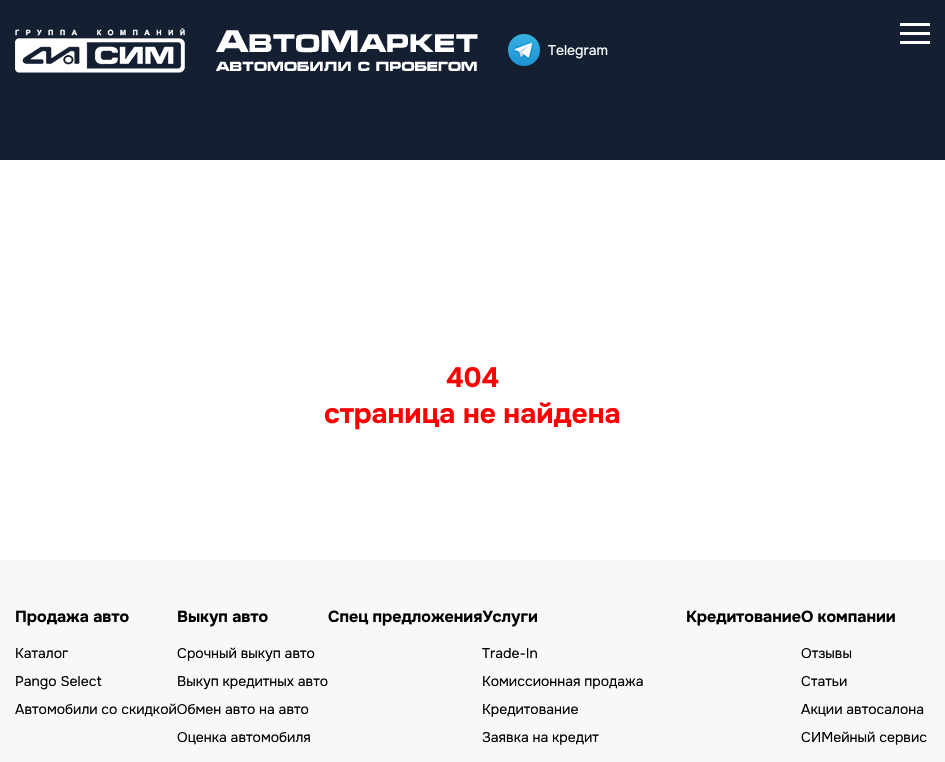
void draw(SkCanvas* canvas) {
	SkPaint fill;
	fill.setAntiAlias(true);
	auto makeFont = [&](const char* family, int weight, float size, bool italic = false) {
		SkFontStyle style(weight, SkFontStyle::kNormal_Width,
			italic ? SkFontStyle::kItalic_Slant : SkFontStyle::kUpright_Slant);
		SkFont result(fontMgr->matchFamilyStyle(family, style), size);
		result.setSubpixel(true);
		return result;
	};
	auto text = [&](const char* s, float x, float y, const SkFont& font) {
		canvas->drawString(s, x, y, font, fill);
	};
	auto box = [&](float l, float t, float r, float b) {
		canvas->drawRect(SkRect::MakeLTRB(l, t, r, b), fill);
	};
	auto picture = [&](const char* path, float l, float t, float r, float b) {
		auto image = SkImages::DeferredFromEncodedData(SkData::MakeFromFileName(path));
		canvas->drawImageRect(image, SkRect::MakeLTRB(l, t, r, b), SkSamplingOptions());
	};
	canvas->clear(0xFFFFFFFF);
	fill.setColor(0xFF141F31);
	box(0, 0, 945, 160);
	fill.setColor(0xFFFFFFFF);
	box(900, 23, 930, 26);
	box(900, 32, 930, 35);
	box(900, 41, 930, 44);
	picture("image0.png", 15, 28, 185, 73);
	picture("image1.png", 215, 30, 478, 71);
	picture("image2.png", 508, 34, 540, 66);
	fill.setColor(0xFFF8F8FB);
	box(0, 560, 945, 762);
	auto font1 = makeFont("Onest", 400, 14);
	fill.setColor(0xFFFFFFFF);
	text("Telegram", 548, 55, font1);
	auto font2 = makeFont("Onest", 700, 28);
	fill.setColor(0xFFFF0000);
	text("404", 446, 387, font2);
	text("страница не найдена", 324, 423, font2);
	auto font3 = makeFont("Onest", 700, 16);
	fill.setColor(0xFF000000);
	text("Продажа авто", 15, 622, font3);
	text("Каталог", 15, 658, font1);
	text("Pango Select", 15, 686, font1);
	text("Автомобили со скидкойОбмен авто на авто", 15, 714, font1);
	text("Выкуп авто", 177, 622, font3);
	text("Срочный выкуп авто", 177, 658, font1);
	text("Выкуп кредитных авто", 177, 686, font1);
	text("Оценка автомобиля", 177, 742, font1);
	text("Спец предложенияУслуги", 328, 622, font3);
	text("КредитованиеО компании", 686, 622, font3);
	text("Trade-In", 482, 658, font1);
	text("Комиссионная продажа", 482, 686, font1);
	text("Кредитование", 482, 714, font1);
	text("Заявка на кредит", 482, 742, font1);
	text("Отзывы", 801, 658, font1);
	text("Статьи", 801, 686, font1);
	text("Акции автосалона", 801, 714, font1);
	text("СИМейный сервис", 801, 742, font1);
}
